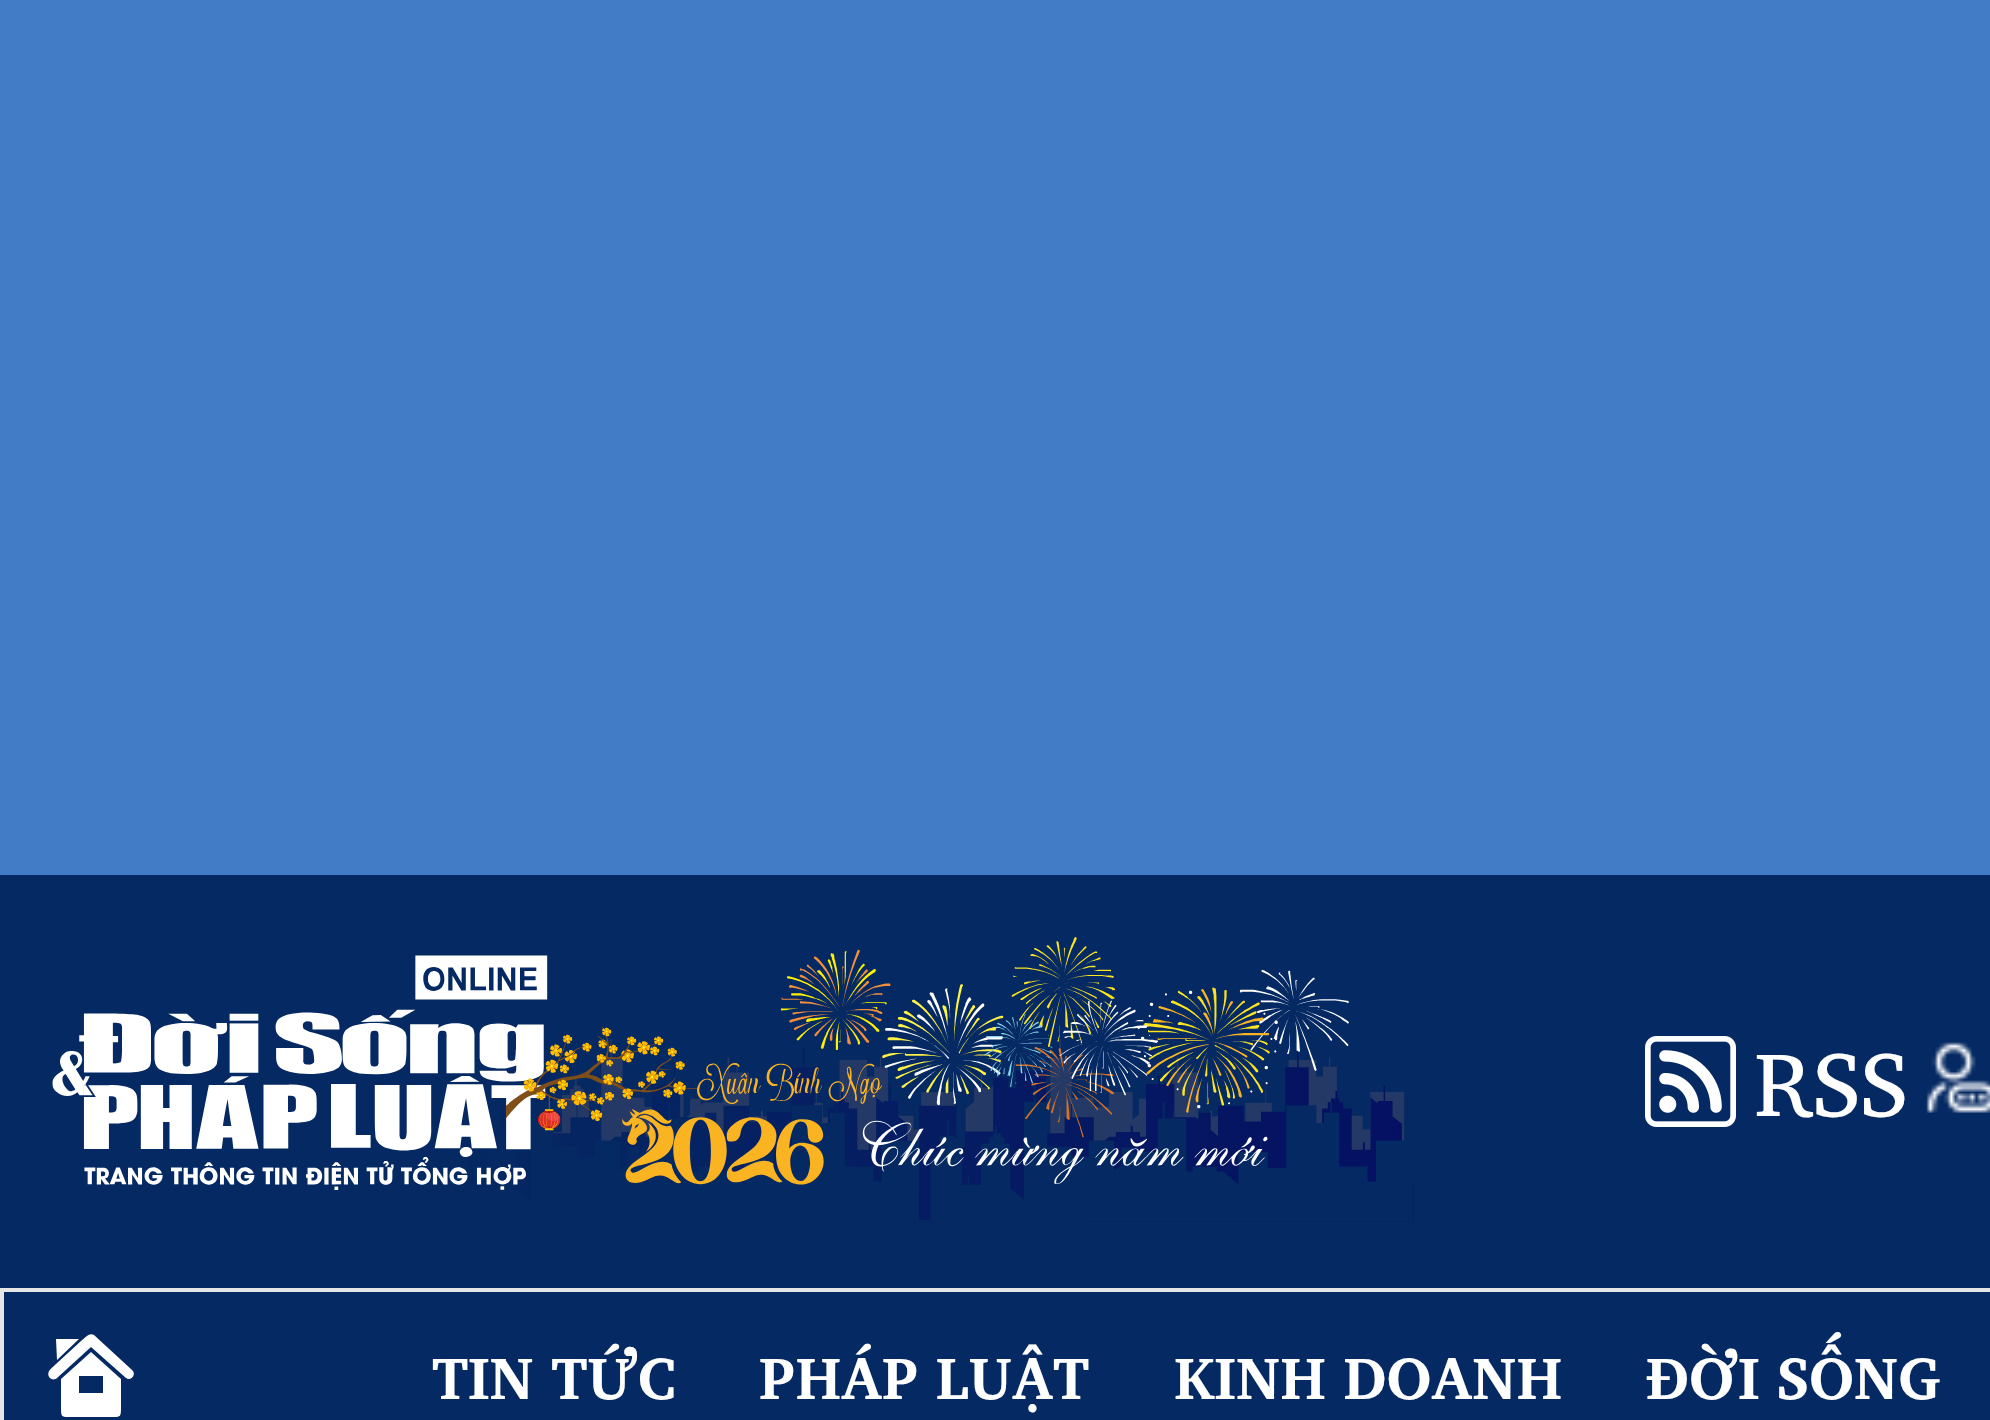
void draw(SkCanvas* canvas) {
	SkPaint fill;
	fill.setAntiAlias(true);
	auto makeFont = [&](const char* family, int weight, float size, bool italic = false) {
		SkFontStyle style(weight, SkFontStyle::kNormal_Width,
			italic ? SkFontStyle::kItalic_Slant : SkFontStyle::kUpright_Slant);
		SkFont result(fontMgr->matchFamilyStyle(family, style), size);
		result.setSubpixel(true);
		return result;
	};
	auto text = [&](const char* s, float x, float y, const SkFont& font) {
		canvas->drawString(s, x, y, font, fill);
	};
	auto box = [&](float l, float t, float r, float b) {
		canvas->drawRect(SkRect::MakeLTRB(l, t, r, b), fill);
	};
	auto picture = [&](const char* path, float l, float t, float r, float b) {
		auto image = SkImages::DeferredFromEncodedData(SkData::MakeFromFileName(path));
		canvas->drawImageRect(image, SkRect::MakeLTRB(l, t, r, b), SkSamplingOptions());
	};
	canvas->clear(0xFF427CC6);
	fill.setColor(0xFF052962);
	box(0, 875, 1990, 1288);
	picture("image0.png", 52, 937, 1414, 1222);
	picture("image1.png", 1645, 1036, 1736, 1127);
	picture("image2.png", 1926, 1042, 1990, 1113);
	canvas->drawRect(SkRect::MakeLTRB(2, 1290, 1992, 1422), fill);
	fill.setStyle(SkPaint::kStroke_Style);
	fill.setStrokeWidth(4);
	fill.setColor(0xFFE5E5E5);
	canvas->drawRect(SkRect::MakeLTRB(2, 1290, 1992, 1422), fill);
	fill.setStyle(SkPaint::kFill_Style);
	fill.setColor(0xFFFFFFFF);
	canvas->drawPath(SkPathBuilder().moveTo(132, 1370).lineTo(94, 1335).cubicTo(89, 1332, 84, 1339, 81, 1341).lineTo(56, 1364).cubicTo(55, 1365, 50, 1369, 49, 1371).cubicTo(46, 1377, 53, 1382, 57, 1378).lineTo(91, 1347).lineTo(126, 1378).cubicTo(131, 1382, 137, 1374, 132, 1370).close().moveTo(61, 1379).lineTo(61, 1408).cubicTo(61, 1418, 62, 1417, 72, 1417).lineTo(110, 1417).cubicTo(120, 1417, 121, 1418, 121, 1408).lineTo(121, 1379).lineTo(91, 1352).close().moveTo(79, 1376).lineTo(103, 1376).lineTo(103, 1393).lineTo(79, 1393).close().moveTo(56, 1339).lineTo(79, 1339).lineTo(57, 1360).close().detach(), fill);
	auto font1 = makeFont("Charis SIL", 400, 91);
	text("RSS", 1754, 1116, font1);
	auto font2 = makeFont("Charis SIL", 700, 59.5f);
	text("TIN TỨC", 432, 1399, font2);
	text("PHÁP LUẬT", 759, 1399, font2);
	text("KINH DOANH", 1174, 1399, font2);
	text("ĐỜI SỐNG", 1646, 1399, font2);
}
